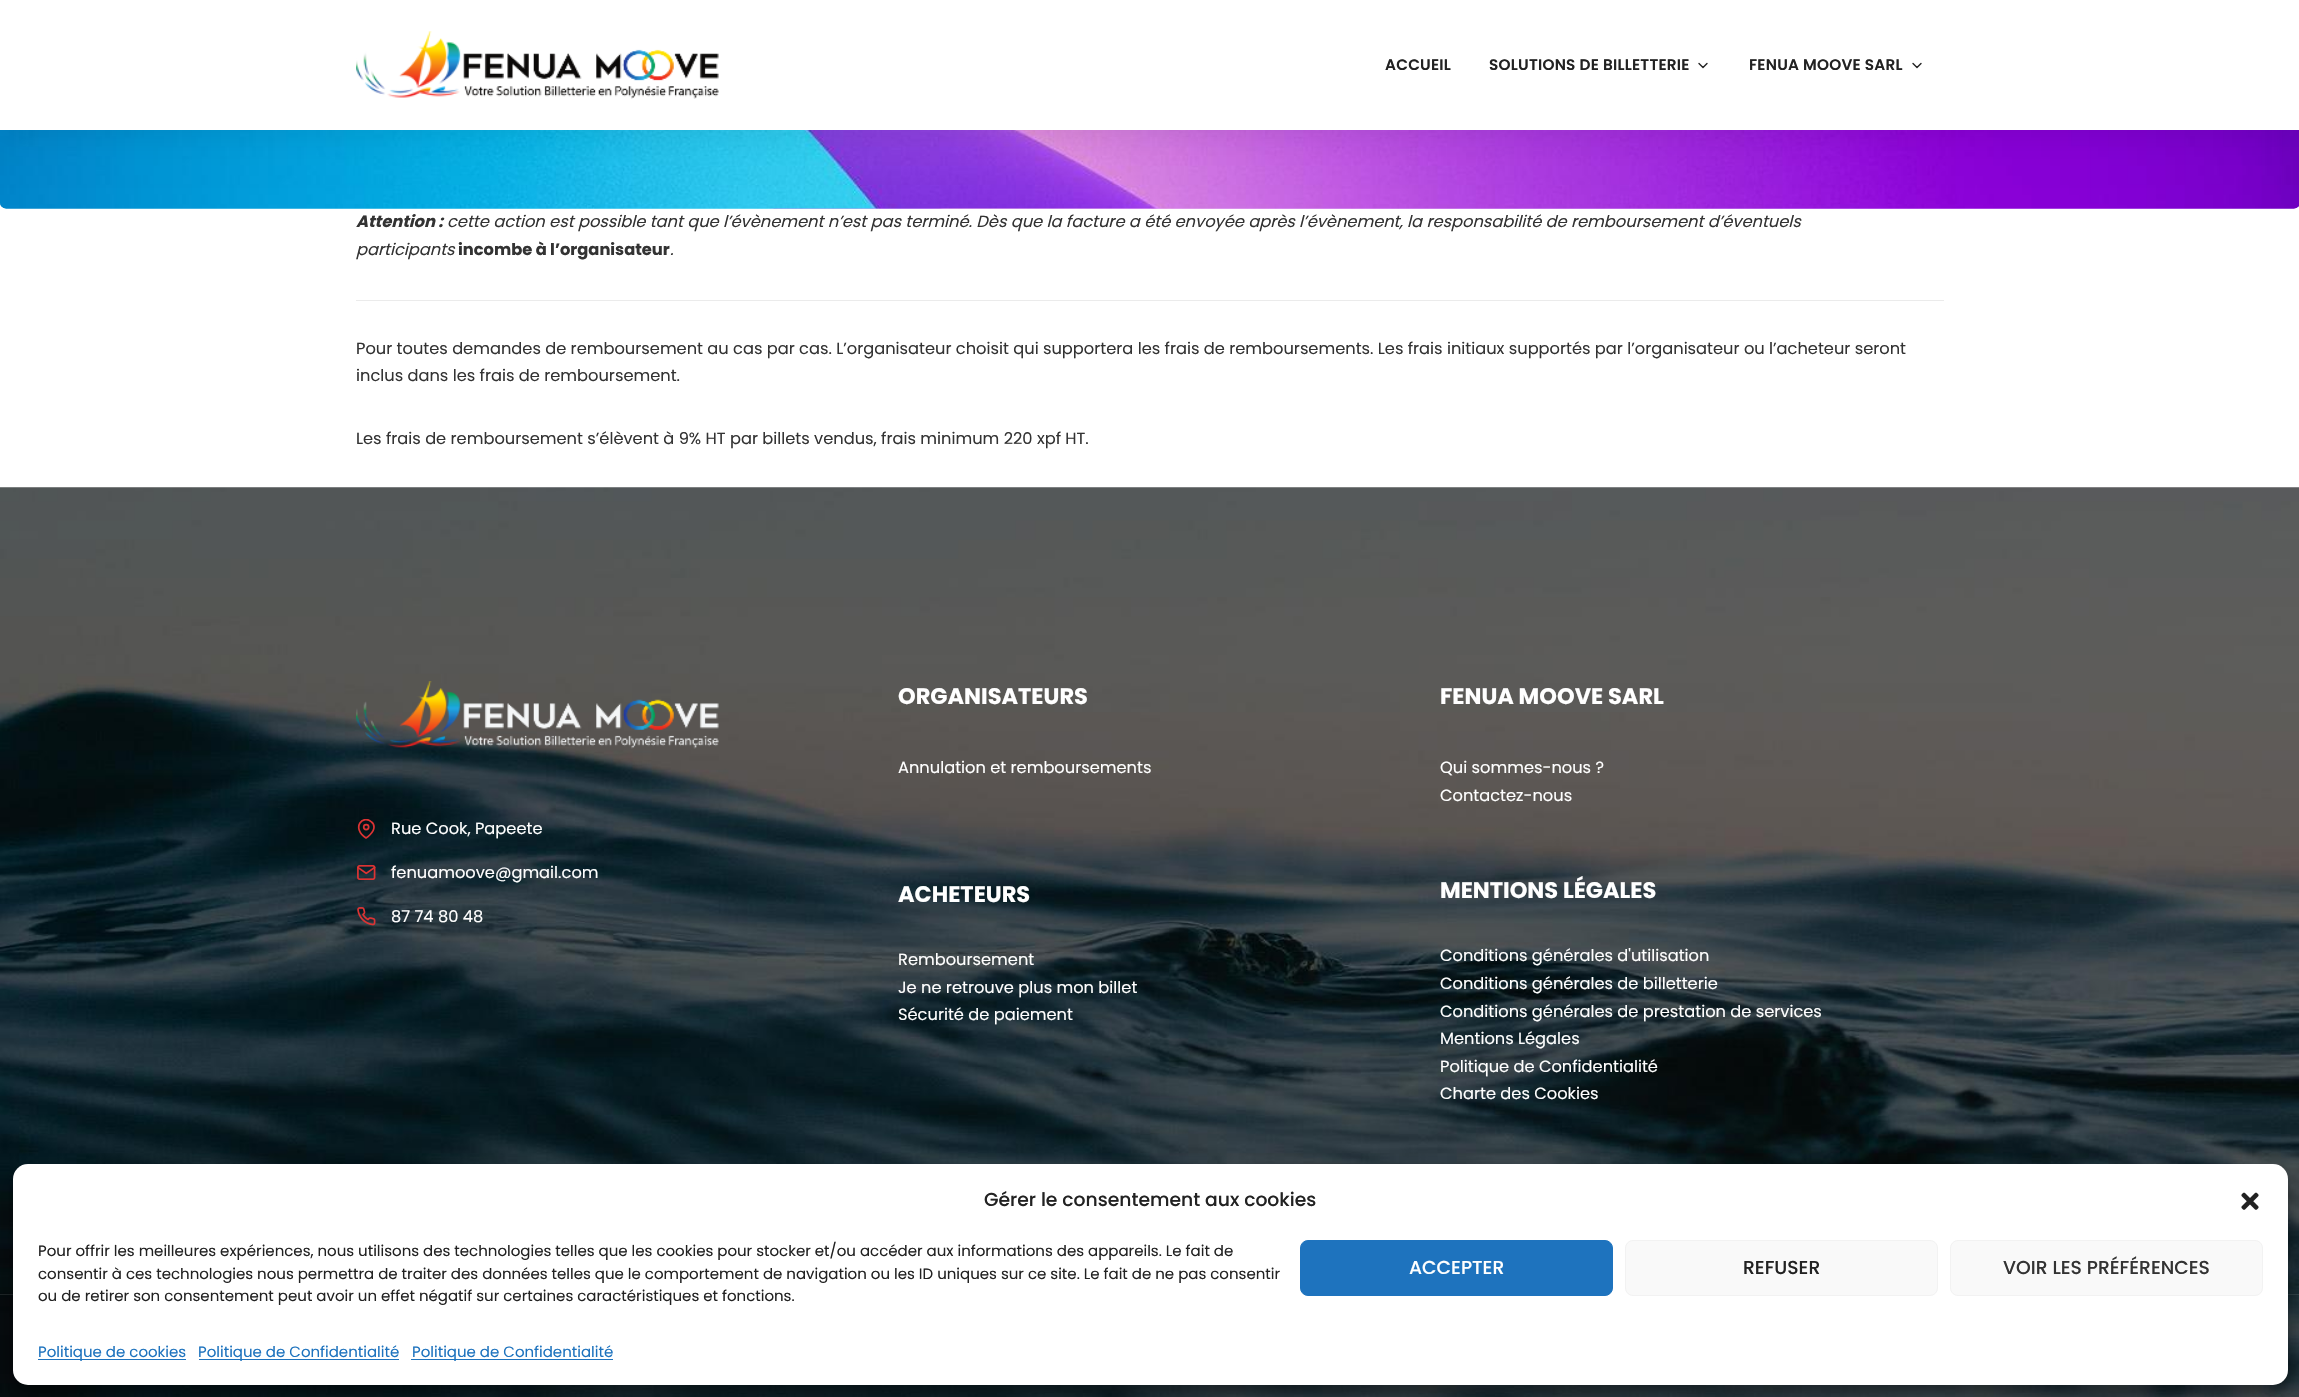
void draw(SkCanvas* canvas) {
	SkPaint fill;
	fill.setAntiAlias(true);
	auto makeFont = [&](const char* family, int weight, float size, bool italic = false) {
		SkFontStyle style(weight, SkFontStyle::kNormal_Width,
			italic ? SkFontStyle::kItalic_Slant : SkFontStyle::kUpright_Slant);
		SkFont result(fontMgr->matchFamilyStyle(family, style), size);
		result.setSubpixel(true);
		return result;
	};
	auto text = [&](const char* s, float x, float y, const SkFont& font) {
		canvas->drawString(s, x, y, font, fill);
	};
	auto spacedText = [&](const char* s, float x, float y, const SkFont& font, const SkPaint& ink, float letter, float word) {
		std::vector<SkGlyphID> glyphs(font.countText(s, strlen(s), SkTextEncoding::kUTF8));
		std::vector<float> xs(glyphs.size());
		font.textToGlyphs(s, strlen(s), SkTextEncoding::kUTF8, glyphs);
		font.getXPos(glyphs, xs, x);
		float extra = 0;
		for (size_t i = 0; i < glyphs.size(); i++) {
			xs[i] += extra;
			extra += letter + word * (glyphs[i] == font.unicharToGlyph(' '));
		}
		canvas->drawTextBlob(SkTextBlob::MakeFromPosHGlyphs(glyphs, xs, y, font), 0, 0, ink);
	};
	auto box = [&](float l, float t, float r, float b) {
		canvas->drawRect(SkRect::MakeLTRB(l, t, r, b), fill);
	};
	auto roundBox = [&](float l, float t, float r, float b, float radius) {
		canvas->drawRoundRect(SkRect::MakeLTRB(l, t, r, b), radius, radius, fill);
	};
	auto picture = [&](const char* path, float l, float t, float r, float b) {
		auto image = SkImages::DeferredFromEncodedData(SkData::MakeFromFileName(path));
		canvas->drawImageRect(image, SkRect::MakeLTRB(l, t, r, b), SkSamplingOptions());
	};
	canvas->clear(0xFFFFFFFF);
	picture("image1.png", 0, 203, 2299, 209);
	picture("image2.png", 0, 130, 2299, 209);
	fill.setColor(0x1A000000);
	fill.setMaskFilter(SkMaskFilter::MakeBlur(kNormal_SkBlurStyle, 19));
	canvas->drawRect(SkRect::MakeLTRB(0, 1, 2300, 131), fill);
	fill.setMaskFilter(nullptr);
	fill.setColor(0xFFFFFFFF);
	box(0, 0, 2299, 130);
	picture("image0.png", 356, 31, 719, 99);
	fill.setStyle(SkPaint::kStroke_Style);
	fill.setStrokeWidth(1.4f);
	fill.setStrokeCap(SkPaint::kRound_Cap);
	fill.setStrokeJoin(SkPaint::kRound_Join);
	fill.setColor(0xFF222222);
	canvas->drawPath(SkPathBuilder().moveTo(1699, 63.5f).lineTo(1703, 67.5f).lineTo(1707, 63.5f).detach(), fill);
	canvas->drawPath(SkPathBuilder().moveTo(1913, 63.5f).lineTo(1917, 67.5f).lineTo(1921, 63.5f).detach(), fill);
	fill.setStyle(SkPaint::kFill_Style);
	fill.setColor(0xFFEBEBEB);
	box(356, 300, 1944, 301);
	picture("image3.png", 0, 487, 2299, 1397);
	picture("image4.png", 356, 681, 719, 749);
	canvas->save();
	canvas->clipRect(SkRect::MakeLTRB(356, 819, 376, 839));
	fill.setStyle(SkPaint::kStroke_Style);
	fill.setStrokeWidth(1.7f);
	fill.setColor(0xFFDD3333);
	canvas->drawPath(SkPathBuilder().moveTo(374, 827).cubicTo(374, 833, 366, 838, 366, 838).cubicTo(350.5f, 827.5f, 363.5f, 814, 371.5f, 822).cubicTo(373, 823, 374, 825, 374, 827).close().detach(), fill);
	canvas->restore();
	fill.setStrokeCap(SkPaint::kButt_Cap);
	fill.setStrokeJoin(SkPaint::kMiter_Join);
	canvas->drawCircle(366.2f, 827.1f, 2.5f, fill);
	picture("image5.png", 357, 865, 376, 880);
	picture("image6.png", 357, 907, 376, 926);
	fill.setStyle(SkPaint::kFill_Style);
	fill.setColor(0x1AFFFFFF);
	box(0, 1294, 2299, 1295);
	fill.setColor(0x3B000000);
	fill.setMaskFilter(SkMaskFilter::MakeBlur(kNormal_SkBlurStyle, 4));
	canvas->drawRoundRect(SkRect::MakeLTRB(13, 1171, 2288, 1393), 15, 15, fill);
	fill.setMaskFilter(nullptr);
	fill.setColor(0x30000000);
	fill.setMaskFilter(SkMaskFilter::MakeBlur(kNormal_SkBlurStyle, 12.5f));
	canvas->drawRoundRect(SkRect::MakeLTRB(13, 1176, 2288, 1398), 15, 15, fill);
	fill.setMaskFilter(nullptr);
	fill.setColor(0xFFFFFFFF);
	roundBox(13, 1164, 2288, 1385, 15);
	picture("image7.png", 2241, 1192, 2259, 1210);
	fill.setColor(0xFF1E73BE);
	canvas->drawRoundRect(SkRect::MakeLTRB(1300.5f, 1240.5f, 1612.5f, 1295.5f), 7.5f, 7.5f, fill);
	fill.setStyle(SkPaint::kStroke_Style);
	fill.setStrokeWidth(1);
	canvas->drawRoundRect(SkRect::MakeLTRB(1300.5f, 1240.5f, 1612.5f, 1295.5f), 7.5f, 7.5f, fill);
	fill.setStyle(SkPaint::kFill_Style);
	fill.setColor(0xFFF9F9F9);
	canvas->drawRoundRect(SkRect::MakeLTRB(1625.5f, 1240.5f, 1937.5f, 1295.5f), 7.5f, 7.5f, fill);
	fill.setStyle(SkPaint::kStroke_Style);
	fill.setColor(0xFFF2F2F2);
	canvas->drawRoundRect(SkRect::MakeLTRB(1625.5f, 1240.5f, 1937.5f, 1295.5f), 7.5f, 7.5f, fill);
	fill.setStyle(SkPaint::kFill_Style);
	fill.setColor(0xFFF9F9F9);
	canvas->drawRoundRect(SkRect::MakeLTRB(1950.5f, 1240.5f, 2262.5f, 1295.5f), 7.5f, 7.5f, fill);
	fill.setStyle(SkPaint::kStroke_Style);
	fill.setColor(0xFFF2F2F2);
	canvas->drawRoundRect(SkRect::MakeLTRB(1950.5f, 1240.5f, 2262.5f, 1295.5f), 7.5f, 7.5f, fill);
	fill.setStyle(SkPaint::kFill_Style);
	fill.setColor(0xFF1E73BE);
	box(38, 1359, 186, 1360);
	box(199, 1359, 399, 1360);
	box(411, 1359, 613, 1360);
	auto font1 = makeFont("Poppins", 600, 15.25f);
	fill.setColor(0xFF222222);
	spacedText("ACCUEIL", 1385, 70, font1, fill, 0.25f, 0);
	spacedText("SOLUTIONS DE BILLETTERIE", 1489, 70, font1, fill, 0.25f, 0);
	spacedText("FENUA MOOVE SARL", 1749, 70, font1, fill, 0.25f, 0);
	auto font2 = makeFont("Poppins", 700, 16.25f, true);
	fill.setColor(0xFF333333);
	text("Attention :", 356, 227, font2);
	auto font3 = makeFont("Poppins", 400, 16.25f, true);
	text("cette action est possible tant que l’évènement n’est pas terminé. Dès que la facture a été envoyée après l’évènement, la responsabilité de remboursement d’éventuels", 447, 227, font3);
	text("participants", 356, 255, font3);
	auto font4 = makeFont("Poppins", 700, 16.25f);
	text("incombe à l’organisateur", 458, 255, font4);
	text(".", 670, 255, font3);
	auto font5 = makeFont("Poppins", 400, 16.25f);
	text("Pour toutes demandes de remboursement au cas par cas. L’organisateur choisit qui supportera les frais de remboursements. Les frais initiaux supportés par l’organisateur ou l’acheteur seront", 356, 354, font5);
	text("inclus dans les frais de remboursement.", 356, 381, font5);
	text("Les frais de remboursement s’élèvent à 9% HT par billets vendus, frais minimum 220 xpf HT.", 356, 444, font5);
	fill.setColor(0xFFFFFFFF);
	text("Rue Cook, Papeete", 391, 834, font5);
	text("fenuamoove@gmail.com", 391, 878, font5);
	text("87 74 80 48", 391, 922, font5);
	auto font6 = makeFont("Poppins", 700, 22.5f);
	text("ORGANISATEURS", 898, 704, font6);
	text("Annulation et remboursements", 898, 773, font5);
	text("ACHETEURS", 898, 902, font6);
	text("Remboursement", 898, 965, font5);
	text("Je ne retrouve plus mon billet", 898, 993, font5);
	text("Sécurité de paiement", 898, 1020, font5);
	text("FENUA MOOVE SARL", 1440, 704, font6);
	text("Qui sommes-nous ?", 1440, 773, font5);
	text("Contactez-nous", 1440, 801, font5);
	text("MENTIONS LÉGALES", 1440, 898, font6);
	text("Conditions générales d'utilisation", 1440, 961, font5);
	text("Conditions générales de billetterie", 1440, 989, font5);
	text("Conditions générales de prestation de services", 1440, 1017, font5);
	text("Mentions Légales", 1440, 1044, font5);
	text("Politique de Confidentialité", 1440, 1072, font5);
	text("Charte des Cookies", 1440, 1099, font5);
	auto font7 = makeFont("Poppins", 500, 18.75f);
	fill.setColor(0xFF222222);
	text("Gérer le consentement aux cookies", 984, 1206, font7);
	auto font8 = makeFont("Poppins", 400, 15);
	text("Pour offrir les meilleures expériences, nous utilisons des technologies telles que les cookies pour stocker et/ou accéder aux informations des appareils. Le fait de", 38, 1256, font8);
	text("consentir à ces technologies nous permettra de traiter des données telles que le comportement de navigation ou les ID uniques sur ce site. Le fait de ne pas consentir", 38, 1279, font8);
	text("ou de retirer son consentement peut avoir un effet négatif sur certaines caractéristiques et fonctions.", 38, 1301, font8);
	fill.setColor(0xFFFFFFFF);
	text("ACCEPTER", 1409, 1274, font7);
	fill.setColor(0xFF222222);
	text("REFUSER", 1743, 1274, font7);
	fill.setColor(0xFF333333);
	text("VOIR LES PRÉFÉRENCES", 2003, 1274, font7);
	fill.setColor(0xFF1E73BE);
	text("Politique de cookies", 38, 1357, font8);
	text("Politique de Confidentialité", 198, 1357, font8);
	text("Politique de Confidentialité", 412, 1357, font8);
}
